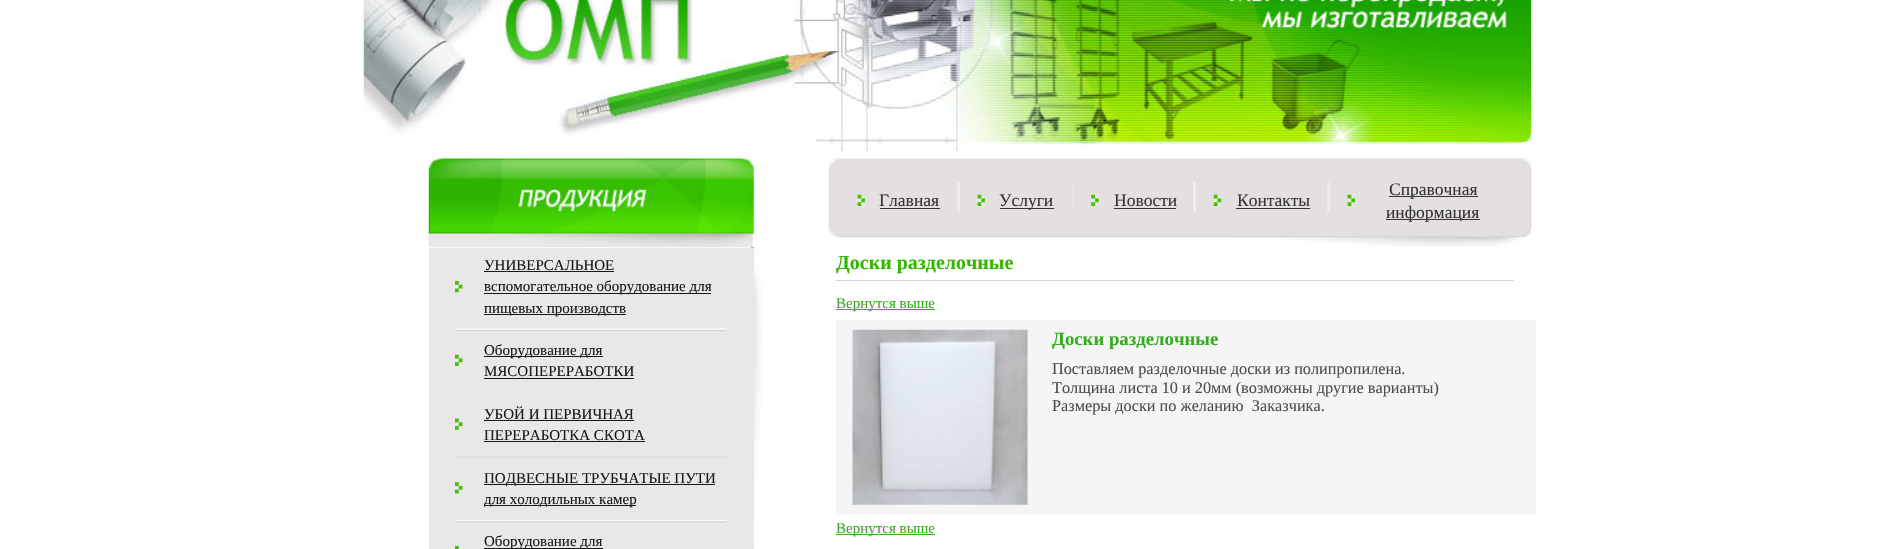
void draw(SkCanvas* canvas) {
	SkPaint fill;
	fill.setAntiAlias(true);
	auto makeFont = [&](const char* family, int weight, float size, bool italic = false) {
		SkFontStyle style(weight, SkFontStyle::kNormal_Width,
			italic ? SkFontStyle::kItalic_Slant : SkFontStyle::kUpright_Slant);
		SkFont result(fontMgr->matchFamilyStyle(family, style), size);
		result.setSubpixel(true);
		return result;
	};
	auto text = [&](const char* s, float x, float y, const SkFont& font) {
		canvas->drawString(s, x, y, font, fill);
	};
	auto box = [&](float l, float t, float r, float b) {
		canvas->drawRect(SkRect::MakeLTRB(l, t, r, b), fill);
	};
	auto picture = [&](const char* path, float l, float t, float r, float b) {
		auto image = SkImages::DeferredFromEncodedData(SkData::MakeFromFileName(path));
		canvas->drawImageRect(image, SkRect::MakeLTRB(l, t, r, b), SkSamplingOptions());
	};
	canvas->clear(0xFFFFFFFF);
	picture("image0.png", 363, 0, 1532, 151);
	picture("image1.png", 505, 0, 693, 65);
	picture("image2.png", 428, 158, 754, 248);
	picture("image3.png", 751, 247, 763, 545);
	fill.setColor(0xFFE9E7E7);
	box(429, 248, 754, 549);
	picture("image4.png", 455, 281, 463, 293);
	fill.setColor(0xFF191719);
	box(484, 271, 614, 272);
	box(484, 293, 711, 294);
	box(484, 314, 626, 315);
	picture("image5.png", 455, 328, 727, 332);
	picture("image6.png", 455, 354, 463, 366);
	box(484, 356, 603, 357);
	box(484, 378, 634, 379);
	picture("image7.png", 455, 418, 463, 430);
	box(484, 420, 634, 421);
	box(484, 441, 645, 442);
	fill.setColor(0xFFE1E1E1);
	box(455, 456, 727, 459);
	picture("image8.png", 455, 482, 463, 494);
	fill.setColor(0xFF191719);
	box(484, 484, 715, 485);
	box(484, 505, 636, 506);
	picture("image9.png", 455, 519, 727, 523);
	picture("image10.png", 455, 546, 463, 549);
	box(484, 548, 603, 549);
	picture("image11.png", 828, 158, 1532, 238);
	picture("image12.png", 1236, 158, 1532, 247);
	picture("image13.png", 828, 158, 840, 238);
	picture("image14.png", 857, 194, 865, 206);
	fill.setColor(0xFF353535);
	box(880, 208, 940, 209);
	fill.setColor(0xFFECEAEB);
	box(957, 182, 960, 212);
	picture("image15.png", 977, 194, 985, 206);
	fill.setColor(0xFF353535);
	box(1000, 208, 1054, 209);
	fill.setColor(0xFFE6E4E5);
	box(1071, 182, 1074, 212);
	picture("image16.png", 1091, 194, 1099, 206);
	fill.setColor(0xFF353535);
	box(1114, 208, 1176, 209);
	fill.setColor(0xFFF0EEEF);
	box(1193, 182, 1196, 212);
	picture("image17.png", 1213, 194, 1222, 206);
	fill.setColor(0xFF353535);
	box(1236, 208, 1310, 209);
	fill.setColor(0xFFECEAEB);
	box(1327, 182, 1330, 212);
	picture("image15.png", 1347, 194, 1355, 206);
	fill.setColor(0xFF353535);
	box(1389, 196, 1478, 197);
	box(1386, 219, 1480, 220);
	fill.setColor(0xFFD6D6D6);
	box(836, 280, 1514, 281);
	fill.setColor(0xFF35AE1F);
	box(836, 309, 935, 310);
	fill.setColor(0xFFF6F5F5);
	box(836, 320, 1536, 515);
	picture("image18.png", 852, 329, 1028, 505);
	fill.setColor(0xFF35AE1F);
	box(836, 534, 935, 535);
	auto font1 = makeFont("Liberation Serif", 400, 15);
	fill.setColor(0xFF191719);
	text("УНИВЕРСАЛЬНОЕ", 484, 270, font1);
	text("вспомогательное оборудование для", 484, 291, font1);
	text("пищевых производств", 484, 313, font1);
	text("Оборудование для", 484, 355, font1);
	text("МЯСОПЕРЕРАБОТКИ", 484, 376, font1);
	text("УБОЙ И ПЕРВИЧНАЯ", 484, 419, font1);
	text("ПЕРЕРАБОТКА СКОТА", 484, 440, font1);
	text("ПОДВЕСНЫЕ ТРУБЧАТЫЕ ПУТИ", 484, 483, font1);
	text("для холодильных камер", 484, 504, font1);
	text("Оборудование для", 484, 546, font1);
	auto font2 = makeFont("Liberation Serif", 400, 17.5f);
	fill.setColor(0xFF353535);
	text("Главная", 879, 206, font2);
	text("Услуги", 999, 206, font2);
	text("Новости", 1114, 206, font2);
	text("Контакты", 1237, 206, font2);
	text("Справочная", 1389, 195, font2);
	text("информация", 1386, 218, font2);
	auto font3 = makeFont("Liberation Serif", 700, 20);
	fill.setColor(0xFF33B700);
	text("Доски разделочные", 836, 269, font3);
	fill.setColor(0xFF34AC1E);
	text("Вернутся выше", 836, 308, font1);
	auto font4 = makeFont("Liberation Serif", 700, 18.75f);
	text("Доски разделочные", 1052, 345, font4);
	auto font5 = makeFont("Liberation Serif", 400, 16.25f);
	fill.setColor(0xFF4D4D4D);
	text("Поставляем разделочные доски из полипропилена.", 1052, 374, font5);
	text("Толщина листа 10 и 20мм (возможны другие варианты)", 1052, 393, font5);
	text("Размеры доски по желанию  Заказчика.", 1052, 411, font5);
	fill.setColor(0xFF34AC1E);
	text("Вернутся выше", 836, 533, font1);
}
